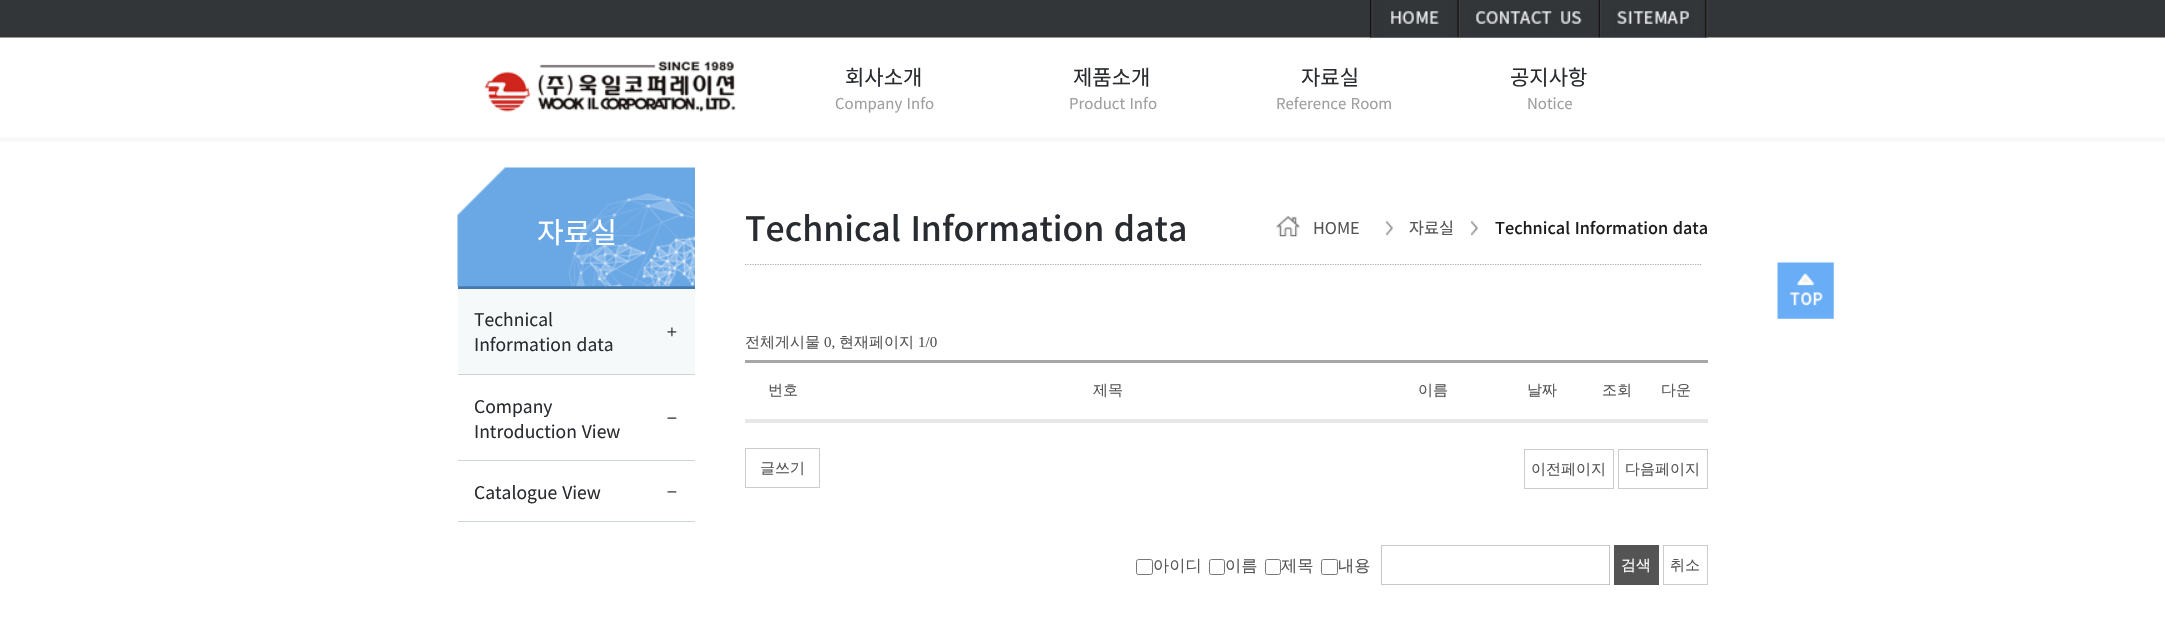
void draw(SkCanvas* canvas) {
	SkPaint fill;
	fill.setAntiAlias(true);
	auto makeFont = [&](const char* family, int weight, float size, bool italic = false) {
		SkFontStyle style(weight, SkFontStyle::kNormal_Width,
			italic ? SkFontStyle::kItalic_Slant : SkFontStyle::kUpright_Slant);
		SkFont result(fontMgr->matchFamilyStyle(family, style), size);
		result.setSubpixel(true);
		return result;
	};
	auto text = [&](const char* s, float x, float y, const SkFont& font) {
		canvas->drawString(s, x, y, font, fill);
	};
	auto spacedText = [&](const char* s, float x, float y, const SkFont& font, const SkPaint& ink, float letter, float word) {
		std::vector<SkGlyphID> glyphs(font.countText(s, strlen(s), SkTextEncoding::kUTF8));
		std::vector<float> xs(glyphs.size());
		font.textToGlyphs(s, strlen(s), SkTextEncoding::kUTF8, glyphs);
		font.getXPos(glyphs, xs, x);
		float extra = 0;
		for (size_t i = 0; i < glyphs.size(); i++) {
			xs[i] += extra;
			extra += letter + word * (glyphs[i] == font.unicharToGlyph(' '));
		}
		canvas->drawTextBlob(SkTextBlob::MakeFromPosHGlyphs(glyphs, xs, y, font), 0, 0, ink);
	};
	auto box = [&](float l, float t, float r, float b) {
		canvas->drawRect(SkRect::MakeLTRB(l, t, r, b), fill);
	};
	auto picture = [&](const char* path, float l, float t, float r, float b) {
		auto image = SkImages::DeferredFromEncodedData(SkData::MakeFromFileName(path));
		canvas->drawImageRect(image, SkRect::MakeLTRB(l, t, r, b), SkSamplingOptions());
	};
	canvas->clear(0xFFFFFFFF);
	picture("image0.png", 0, 0, 2165, 142);
	picture("image1.png", 1370, 0, 1460, 38);
	picture("image2.png", 1460, 0, 1602, 38);
	picture("image3.png", 1601, 0, 1708, 38);
	picture("image4.png", 484, 61, 736, 112);
	fill.setColor(0xFF4479AE);
	box(458, 286, 695, 289);
	picture("image5.png", 457, 167, 695, 287);
	fill.setStyle(SkPaint::kStroke_Style);
	fill.setStrokeWidth(1.2f);
	fill.setColor(0xFFA9ADB0);
	fill.setPathEffect(SkDashPathEffect::Make({{1.25f, 1.25f}}, 0));
	canvas->drawPath(SkPathBuilder().moveTo(745, 264.5f).lineTo(1702.5f, 264.5f).detach(), fill);
	fill.setPathEffect(nullptr);
	picture("image6.png", 1276, 216, 1300, 237);
	picture("image7.png", 1386, 221, 1393, 236);
	picture("image7.png", 1471, 221, 1478, 236);
	picture("image8.png", 1777, 262, 1834, 319);
	fill.setStyle(SkPaint::kFill_Style);
	fill.setColor(0xFFF6F9FA);
	box(458, 289, 695, 374);
	picture("image9.png", 667, 327, 677, 337);
	fill.setColor(0xFFCED5D9);
	box(458, 374, 695, 375);
	picture("image10.png", 667, 417, 677, 419);
	box(458, 460, 695, 461);
	picture("image11.png", 667, 491, 677, 493);
	box(458, 521, 695, 522);
	fill.setColor(0xFFA7A7A7);
	box(745, 360, 1708, 363);
	fill.setColor(0xFFE7E7E7);
	box(745, 419, 1708, 423);
	fill.setStyle(SkPaint::kStroke_Style);
	fill.setStrokeWidth(1);
	fill.setColor(0xFFCCCCCC);
	canvas->drawRect(SkRect::MakeLTRB(745.5f, 448.5f, 819.5f, 487.5f), fill);
	canvas->drawRect(SkRect::MakeLTRB(1524.5f, 449.5f, 1613.5f, 488.5f), fill);
	canvas->drawRect(SkRect::MakeLTRB(1618.5f, 449.5f, 1707.5f, 488.5f), fill);
	fill.setColor(0xFF767676);
	canvas->drawRoundRect(SkRect::MakeLTRB(1136.5f, 559.5f, 1152.5f, 574.5f), 2, 2, fill);
	canvas->drawRoundRect(SkRect::MakeLTRB(1209.5f, 559.5f, 1224.5f, 574.5f), 2, 2, fill);
	canvas->drawRoundRect(SkRect::MakeLTRB(1265.5f, 559.5f, 1280.5f, 574.5f), 2, 2, fill);
	canvas->drawRoundRect(SkRect::MakeLTRB(1321.5f, 559.5f, 1337.5f, 574.5f), 2, 2, fill);
	fill.setColor(0xFFC7C7C7);
	canvas->drawRect(SkRect::MakeLTRB(1381.5f, 545.5f, 1609.5f, 584.5f), fill);
	fill.setStyle(SkPaint::kFill_Style);
	fill.setColor(0xFF545454);
	box(1614, 545, 1659, 585);
	fill.setStyle(SkPaint::kStroke_Style);
	fill.setColor(0xFFCCCCCC);
	canvas->drawRect(SkRect::MakeLTRB(1663.5f, 545.5f, 1707.5f, 584.5f), fill);
	auto font1 = makeFont("Noto Sans KR", 400, 21);
	fill.setStyle(SkPaint::kFill_Style);
	fill.setColor(0xFF282C30);
	text("회사소개", 845, 85, font1);
	text("제품소개", 1073, 85, font1);
	text("자료실", 1301, 85, font1);
	text("공지사항", 1510, 85, font1);
	auto font2 = makeFont("Noto Sans KR", 400, 15);
	fill.setColor(0xFF9E9E9E);
	spacedText("Company Info", 835, 109, font2, fill, 0, 1);
	spacedText("Product Info", 1069, 109, font2, fill, 0, 1);
	spacedText("Reference Room", 1276, 109, font2, fill, 0, 1);
	text("Notice", 1527, 109, font2);
	auto font3 = makeFont("Noto Sans KR", 400, 29);
	fill.setColor(0xFFFFFFFF);
	text("자료실", 537, 243, font3);
	auto font4 = makeFont("Noto Sans KR", 500, 33.75f);
	fill.setColor(0xFF282C30);
	spacedText("Technical Information data", 745, 241, font4, fill, 0, 2);
	auto font5 = makeFont("Noto Sans KR", 400, 16.25f);
	fill.setColor(0xFF555555);
	text("HOME", 1313, 234, font5);
	text("자료실", 1409, 234, font5);
	auto font6 = makeFont("Noto Sans KR", 500, 16.25f);
	fill.setColor(0xFF1D1D1D);
	spacedText("Technical Information data", 1495, 234, font6, fill, 0, 1);
	auto font7 = makeFont("Noto Sans KR", 400, 17.5f);
	fill.setColor(0xFF282C30);
	text("Technical", 474, 326, font7);
	spacedText("Information data", 474, 351, font7, fill, 0, 1);
	text("Company", 474, 413, font7);
	spacedText("Introduction View", 474, 438, font7, fill, 0, 1);
	spacedText("Catalogue View", 474, 499, font7, fill, 0, 1);
	auto font8 = makeFont("WenQuanYi Zen Hei", 500, 15);
	fill.setColor(0xFF555555);
	text("전체게시물", 745, 347, font8);
	auto font9 = makeFont("Liberation Serif", 400, 15);
	text("0,", 824, 347, font9);
	text("현재페이지", 839, 347, font8);
	text("1/0", 918, 347, font9);
	text("번호", 768, 395, font8);
	text("제목", 1093, 395, font8);
	text("이름", 1418, 395, font8);
	text("날짜", 1527, 395, font8);
	text("조회", 1602, 395, font8);
	text("다운", 1661, 395, font8);
	text("글쓰기", 760, 473, font8);
	text("이전페이지", 1531, 474, font8);
	text("다음페이지", 1625, 474, font8);
	auto font10 = makeFont("WenQuanYi Zen Hei", 500, 16.25f);
	text("아이디", 1153, 571, font10);
	text("이름", 1225, 571, font10);
	text("제목", 1281, 571, font10);
	text("내용", 1338, 571, font10);
	fill.setColor(0xFFFFFFFF);
	text("검색", 1621, 570, font8);
	fill.setColor(0xFF555555);
	text("취소", 1670, 570, font8);
}
